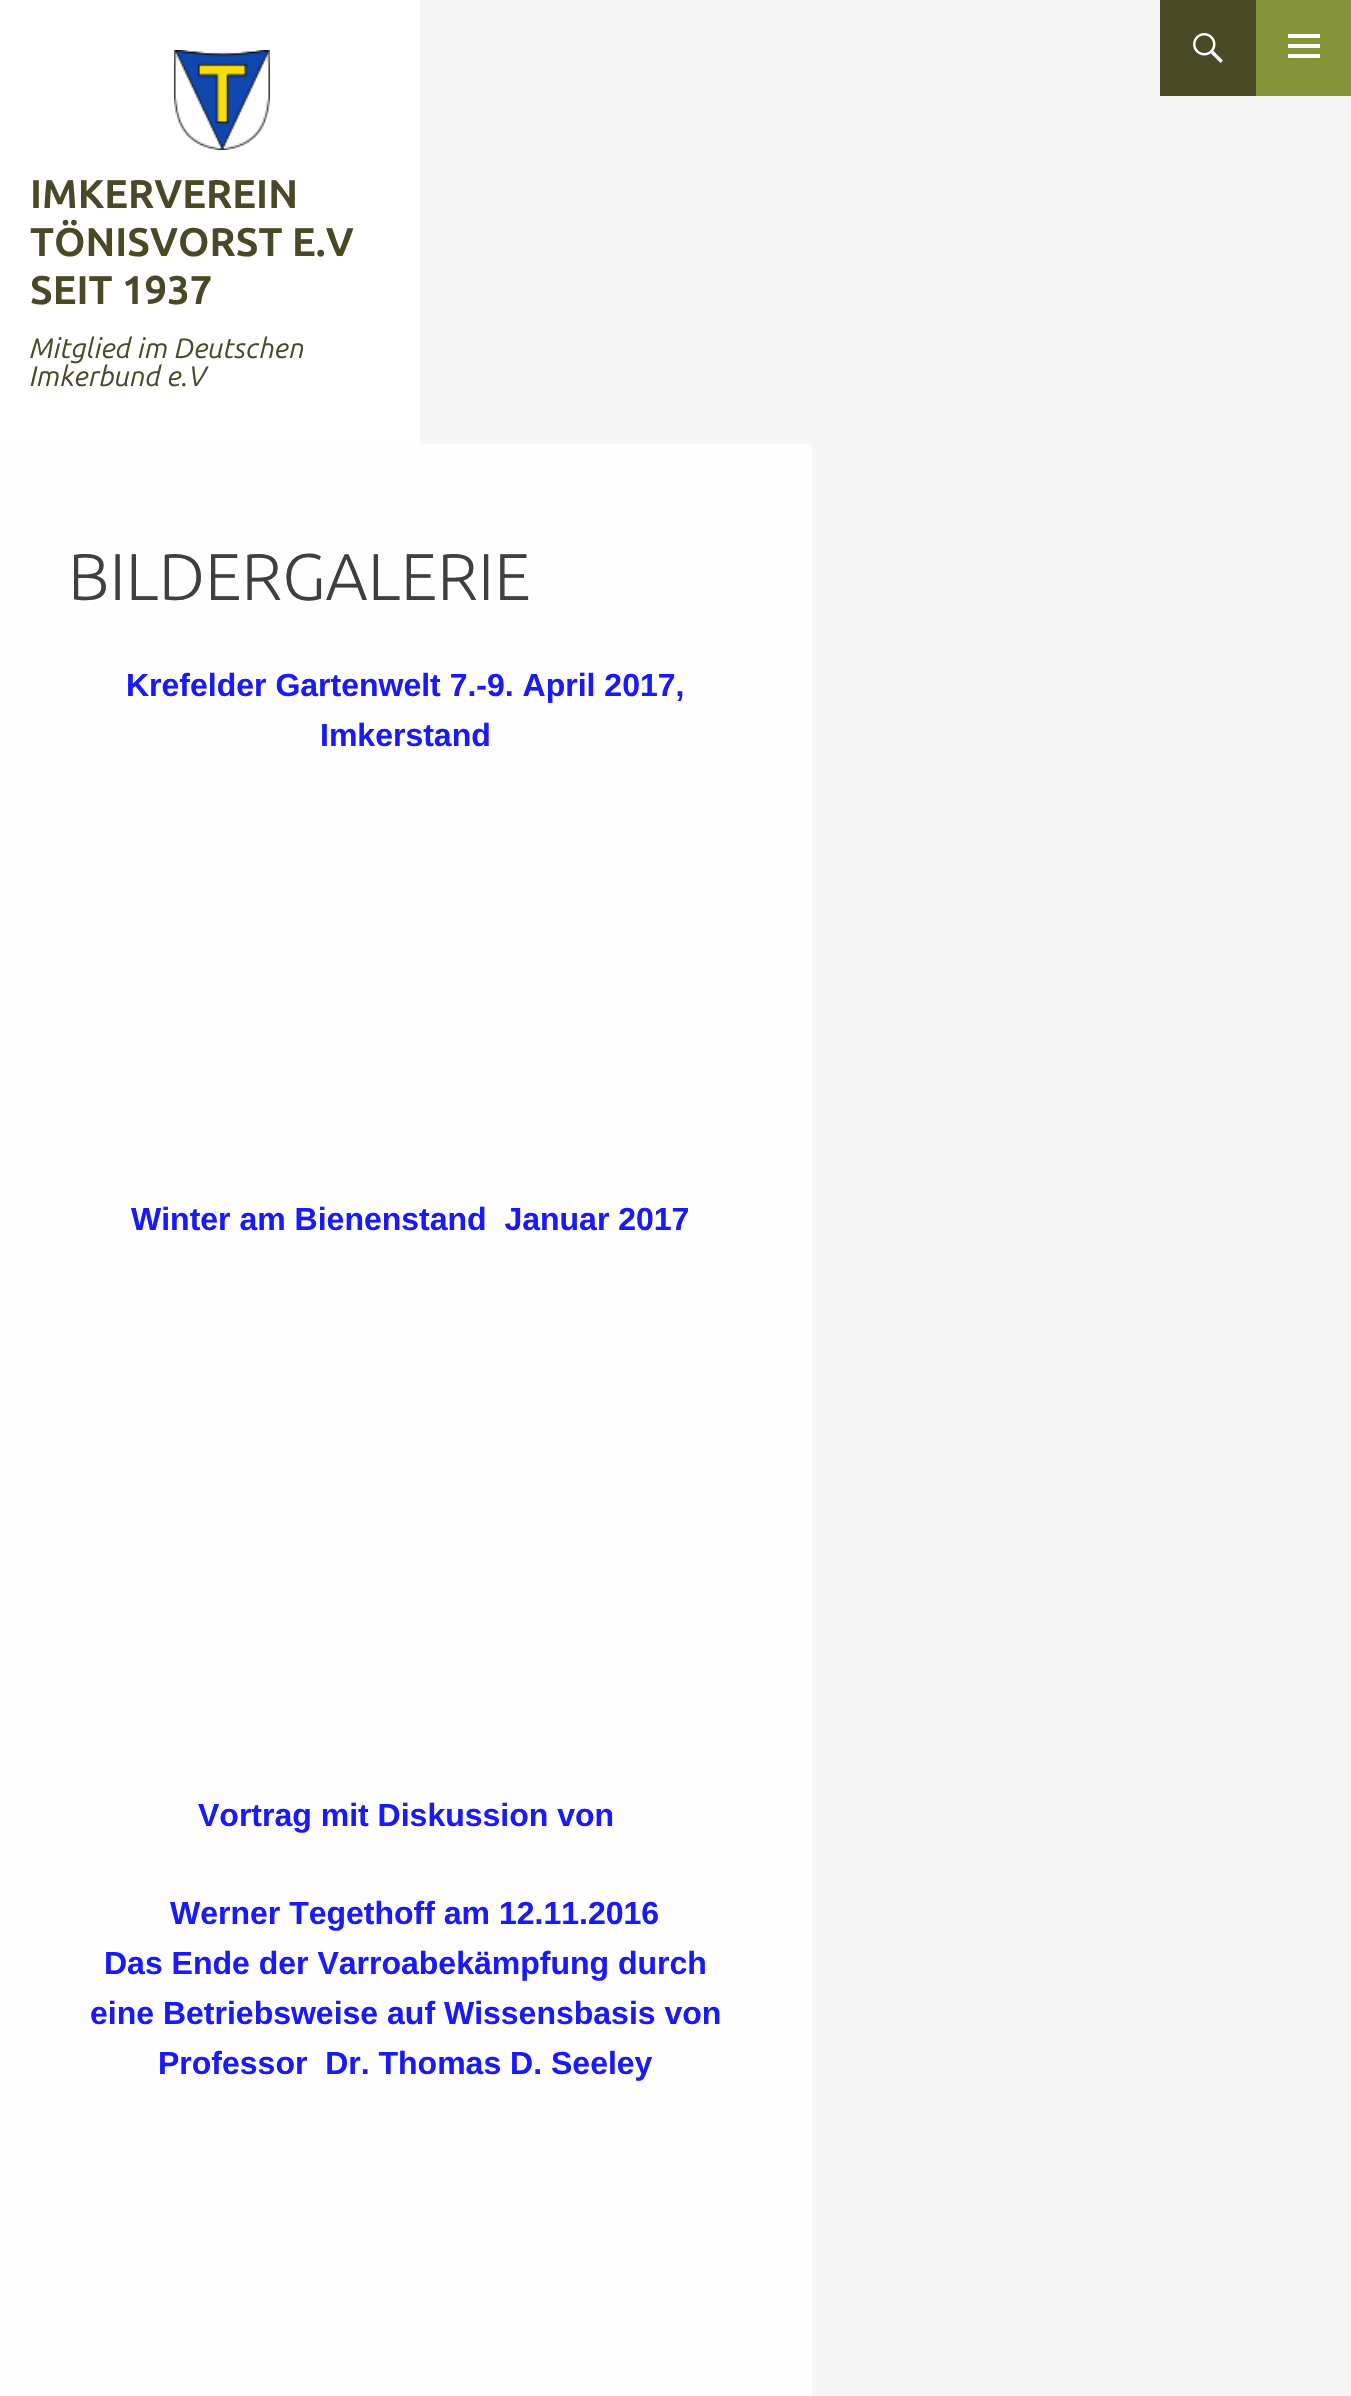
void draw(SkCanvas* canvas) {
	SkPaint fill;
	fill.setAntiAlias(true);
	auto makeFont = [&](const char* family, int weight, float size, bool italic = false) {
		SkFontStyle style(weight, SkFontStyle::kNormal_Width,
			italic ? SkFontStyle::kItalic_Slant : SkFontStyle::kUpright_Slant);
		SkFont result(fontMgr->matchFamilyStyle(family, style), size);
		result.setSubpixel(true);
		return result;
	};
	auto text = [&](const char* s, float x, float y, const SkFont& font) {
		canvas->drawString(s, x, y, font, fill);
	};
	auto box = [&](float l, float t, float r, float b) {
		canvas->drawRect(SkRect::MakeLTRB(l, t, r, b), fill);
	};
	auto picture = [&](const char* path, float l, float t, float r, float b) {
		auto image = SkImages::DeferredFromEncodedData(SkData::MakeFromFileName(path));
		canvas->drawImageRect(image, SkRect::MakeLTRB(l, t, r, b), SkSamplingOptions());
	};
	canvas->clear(0xFFF5F5F5);
	fill.setColor(0xFF494926);
	box(1160, 0, 1256, 96);
	picture("image0.png", 1193, 33, 1223, 63);
	fill.setColor(0xFF849436);
	box(1256, 0, 1351, 96);
	picture("image1.png", 1288, 34, 1320, 58);
	fill.setColor(0xFFFFFFFF);
	box(0, 0, 420, 444);
	picture("image2.png", 174, 50, 270, 150);
	fill.setColor(0xFFFEFEFE);
	box(0, 444, 812, 2396);
	auto font1 = makeFont("Ubuntu", 700, 40);
	fill.setColor(0xFF494926);
	text("IMKERVEREIN", 30, 208, font1);
	text("TÖNISVORST E.V", 30, 256, font1);
	text("SEIT 1937", 30, 304, font1);
	auto font2 = makeFont("Ubuntu", 400, 28, true);
	text("Mitglied im Deutschen", 30, 358, font2);
	text("Imkerbund e.V", 30, 386, font2);
	auto font3 = makeFont("Ubuntu", 300, 66);
	fill.setColor(0xFF3F3F3F);
	text("BILDERGALERIE", 68, 600, font3);
	auto font4 = makeFont("Liberation Sans", 700, 32);
	fill.setColor(0xFF1919FE);
	text("Krefelder Gartenwelt 7.-9. April 2017,", 126, 696, font4);
	text("Imkerstand", 320, 746, font4);
	text("Winter am Bienenstand  Januar 2017", 131, 1230, font4);
	text("Vortrag mit Diskussion von", 198, 1826, font4);
	text("Werner Tegethoff am 12.11.2016", 170, 1924, font4);
	text("Das Ende der Varroabekämpfung durch", 104, 1974, font4);
	text("eine Betriebsweise auf Wissensbasis von", 90, 2024, font4);
	text("Professor  Dr. Thomas D. Seeley", 158, 2074, font4);
}
